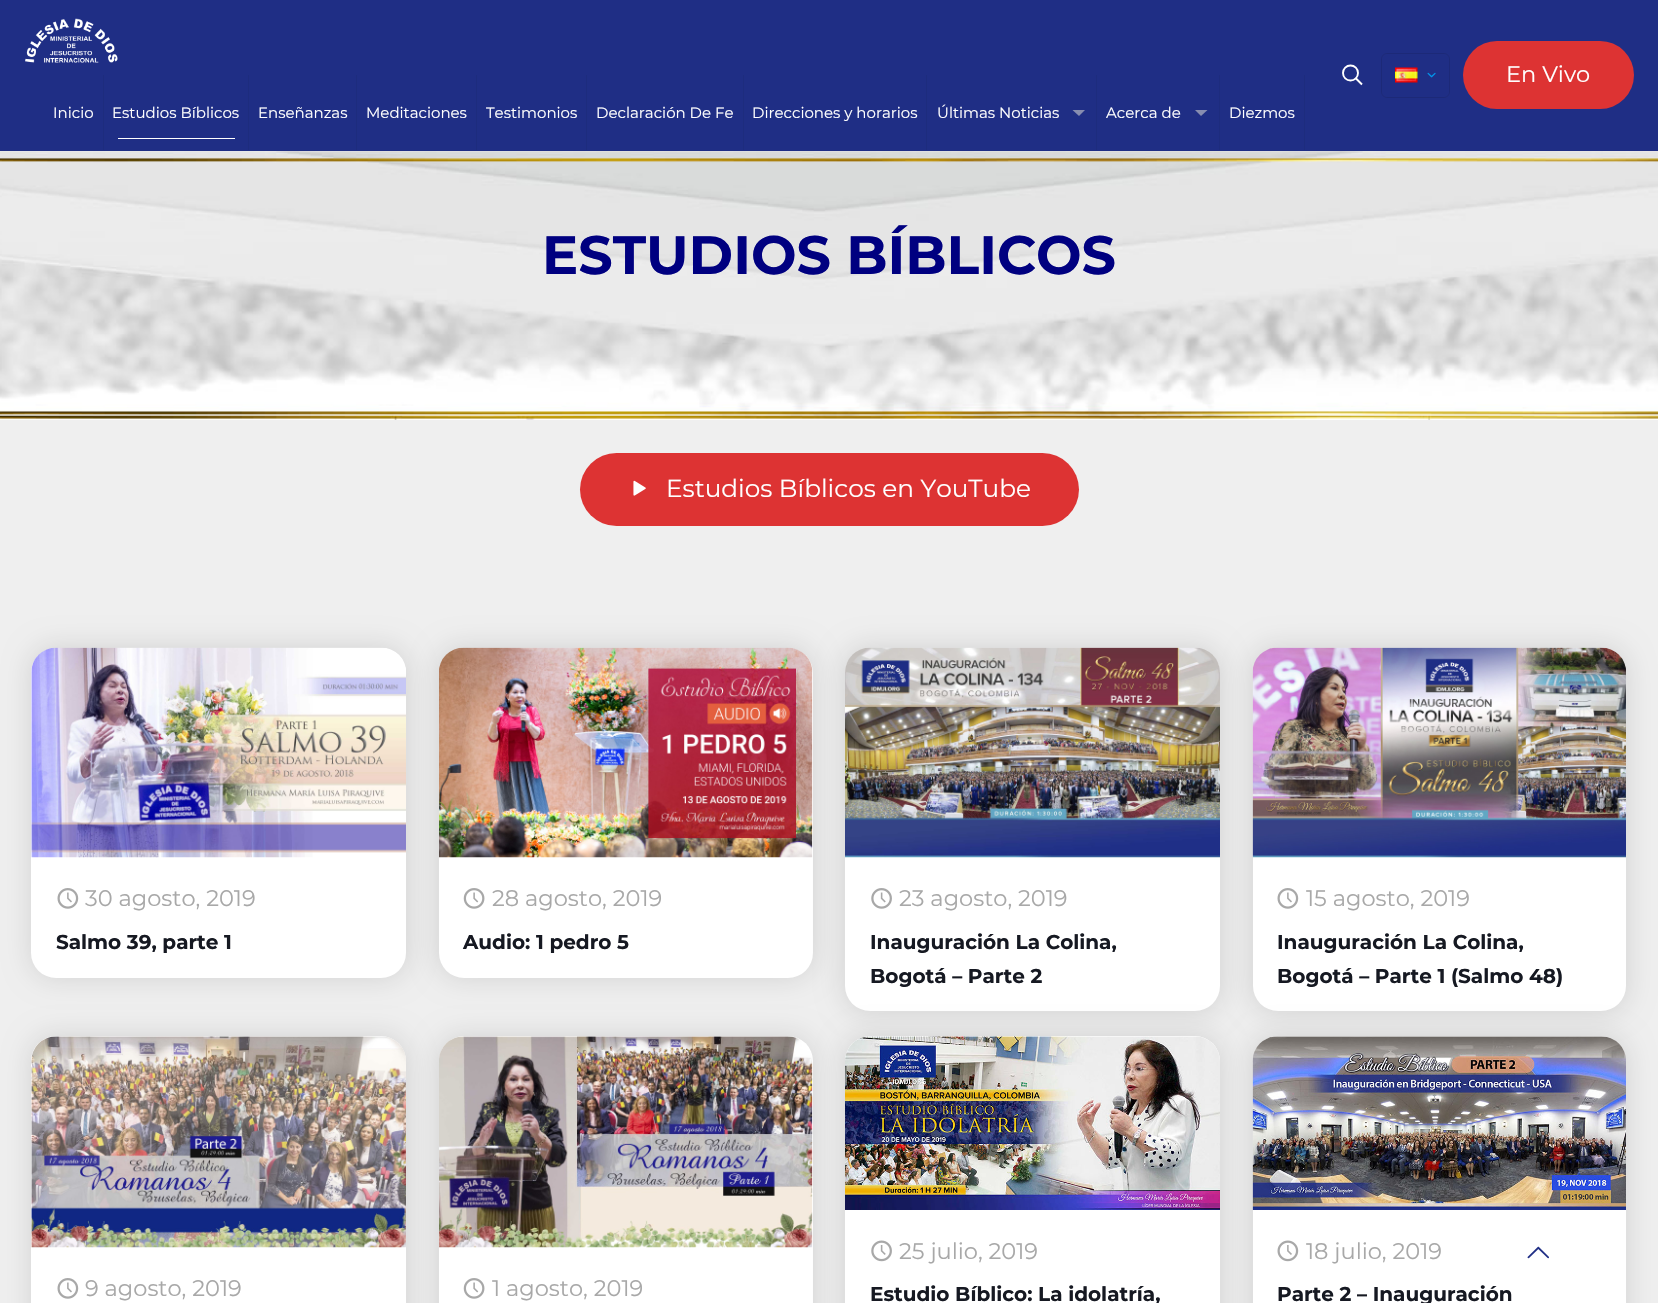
void draw(SkCanvas* canvas) {
	SkPaint fill;
	fill.setAntiAlias(true);
	auto makeFont = [&](const char* family, int weight, float size, bool italic = false) {
		SkFontStyle style(weight, SkFontStyle::kNormal_Width,
			italic ? SkFontStyle::kItalic_Slant : SkFontStyle::kUpright_Slant);
		SkFont result(fontMgr->matchFamilyStyle(family, style), size);
		result.setSubpixel(true);
		return result;
	};
	auto text = [&](const char* s, float x, float y, const SkFont& font) {
		canvas->drawString(s, x, y, font, fill);
	};
	auto box = [&](float l, float t, float r, float b) {
		canvas->drawRect(SkRect::MakeLTRB(l, t, r, b), fill);
	};
	auto roundBox = [&](float l, float t, float r, float b, float radius) {
		canvas->drawRoundRect(SkRect::MakeLTRB(l, t, r, b), radius, radius, fill);
	};
	auto picture = [&](const char* path, float l, float t, float r, float b) {
		auto image = SkImages::DeferredFromEncodedData(SkData::MakeFromFileName(path));
		canvas->drawImageRect(image, SkRect::MakeLTRB(l, t, r, b), SkSamplingOptions());
	};
	canvas->clear(0xFFEFEFEF);
	fill.setColor(0xFF1F2E85);
	box(0, 0, 1658, 151);
	fill.setStyle(SkPaint::kStroke_Style);
	fill.setStrokeWidth(1.9f);
	fill.setColor(0xFFFFFFFF);
	canvas->drawCircle(1350.5f, 73, 7.5f, fill);
	canvas->drawPath(SkPathBuilder().moveTo(1355.5f, 78).lineTo(1362, 84.5f).detach(), fill);
	fill.setStrokeWidth(1);
	fill.setColor(0xFF1C2978);
	canvas->drawRoundRect(SkRect::MakeLTRB(1381.5f, 53.5f, 1449.5f, 97.5f), 5.5f, 5.5f, fill);
	picture("image0.png", 1395, 67, 1418, 83);
	picture("image1.png", 1427, 72, 1436, 78);
	fill.setStyle(SkPaint::kFill_Style);
	fill.setColor(0xFFDD3333);
	roundBox(1463, 41, 1634, 109, 34);
	picture("image2.png", 25, 18, 118, 63);
	fill.setColor(0xFF1D2C7E);
	box(103, 75, 104, 150);
	box(248, 75, 249, 150);
	fill.setColor(0xFFFFFFFF);
	box(118, 138, 235, 139);
	fill.setColor(0xFF1D2C7E);
	box(356, 75, 357, 150);
	box(476, 75, 477, 150);
	box(586, 75, 587, 150);
	box(743, 75, 744, 150);
	box(926, 75, 927, 150);
	box(1096, 75, 1097, 150);
	fill.setColor(0xFF878DB0);
	canvas->drawPath(SkPathBuilder().moveTo(1072.5f, 110).lineTo(1085, 110).lineTo(1079, 116).close().detach(), fill);
	fill.setColor(0xFF1D2C7E);
	box(1219, 75, 1220, 150);
	fill.setColor(0xFF878DB0);
	canvas->drawPath(SkPathBuilder().moveTo(1195, 110).lineTo(1207.5f, 110).lineTo(1201, 116).close().detach(), fill);
	fill.setColor(0xFF1D2C7E);
	box(1304, 75, 1305, 150);
	picture("image3.png", 0, 151, 1658, 420);
	fill.setColor(0xFFDD3333);
	roundBox(580, 453, 1079, 526, 36.5f);
	picture("image4.png", 633, 480, 646, 496);
	fill.setColor(0x1A000000);
	fill.setMaskFilter(SkMaskFilter::MakeBlur(kNormal_SkBlurStyle, 12.5f));
	canvas->drawRoundRect(SkRect::MakeLTRB(28, 644, 410, 981), 29, 29, fill);
	fill.setMaskFilter(nullptr);
	fill.setColor(0xFFFFFFFF);
	roundBox(31, 648, 406, 978, 25);
	picture("image5.png", 31, 647, 406, 858);
	picture("image6.png", 57, 888, 79, 909);
	fill.setColor(0x1A000000);
	fill.setMaskFilter(SkMaskFilter::MakeBlur(kNormal_SkBlurStyle, 12.5f));
	canvas->drawRoundRect(SkRect::MakeLTRB(435, 644, 816, 981), 29, 29, fill);
	fill.setMaskFilter(nullptr);
	fill.setColor(0xFFFFFFFF);
	roundBox(439, 648, 813, 978, 25);
	picture("image7.png", 439, 647, 813, 858);
	picture("image8.png", 463, 888, 485, 909);
	fill.setColor(0x1A000000);
	fill.setMaskFilter(SkMaskFilter::MakeBlur(kNormal_SkBlurStyle, 12.5f));
	canvas->drawRoundRect(SkRect::MakeLTRB(841, 644, 1224, 1015), 29, 29, fill);
	fill.setMaskFilter(nullptr);
	fill.setColor(0xFFFFFFFF);
	roundBox(845, 648, 1220, 1011, 25);
	picture("image9.png", 845, 647, 1220, 858);
	picture("image10.png", 871, 888, 892, 909);
	fill.setColor(0x1A000000);
	fill.setMaskFilter(SkMaskFilter::MakeBlur(kNormal_SkBlurStyle, 12.5f));
	canvas->drawRoundRect(SkRect::MakeLTRB(1249, 644, 1630, 1015), 29, 29, fill);
	fill.setMaskFilter(nullptr);
	fill.setColor(0xFFFFFFFF);
	roundBox(1253, 648, 1626, 1011, 25);
	picture("image11.png", 1252, 647, 1626, 858);
	picture("image6.png", 1277, 888, 1299, 909);
	fill.setColor(0x1A000000);
	fill.setMaskFilter(SkMaskFilter::MakeBlur(kNormal_SkBlurStyle, 12.5f));
	canvas->drawRoundRect(SkRect::MakeLTRB(28, 1033, 410, 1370), 29, 29, fill);
	fill.setMaskFilter(nullptr);
	fill.setColor(0xFFFFFFFF);
	roundBox(31, 1036, 406, 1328, 25);
	picture("image12.png", 31, 1036, 406, 1248);
	picture("image6.png", 57, 1278, 79, 1299);
	fill.setColor(0x1A000000);
	fill.setMaskFilter(SkMaskFilter::MakeBlur(kNormal_SkBlurStyle, 12.5f));
	canvas->drawRoundRect(SkRect::MakeLTRB(435, 1033, 816, 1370), 29, 29, fill);
	fill.setMaskFilter(nullptr);
	fill.setColor(0xFFFFFFFF);
	roundBox(439, 1036, 813, 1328, 25);
	picture("image13.png", 439, 1036, 813, 1248);
	picture("image8.png", 463, 1278, 485, 1299);
	fill.setColor(0x1A000000);
	fill.setMaskFilter(SkMaskFilter::MakeBlur(kNormal_SkBlurStyle, 12.5f));
	canvas->drawRoundRect(SkRect::MakeLTRB(841, 1033, 1224, 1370), 29, 29, fill);
	fill.setMaskFilter(nullptr);
	fill.setColor(0xFFFFFFFF);
	roundBox(845, 1036, 1220, 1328, 25);
	picture("image14.png", 845, 1036, 1220, 1210);
	picture("image15.png", 871, 1240, 892, 1262);
	fill.setColor(0x1A000000);
	fill.setMaskFilter(SkMaskFilter::MakeBlur(kNormal_SkBlurStyle, 12.5f));
	canvas->drawRoundRect(SkRect::MakeLTRB(1249, 1033, 1630, 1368), 29, 29, fill);
	fill.setMaskFilter(nullptr);
	fill.setColor(0xFFFFFFFF);
	roundBox(1253, 1036, 1626, 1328, 25);
	picture("image16.png", 1252, 1036, 1626, 1210);
	picture("image17.png", 1277, 1240, 1299, 1262);
	picture("image18.png", 1527, 1246, 1549, 1259);
	auto font1 = makeFont("Montserrat", 400, 22.5f);
	text("En Vivo", 1506, 82, font1);
	auto font2 = makeFont("Montserrat", 400, 15);
	text("Inicio", 53, 118, font2);
	text("Estudios Bíblicos", 112, 118, font2);
	text("Enseñanzas", 258, 118, font2);
	text("Meditaciones", 366, 118, font2);
	text("Testimonios", 486, 118, font2);
	text("Declaración De Fe", 596, 118, font2);
	text("Direcciones y horarios", 752, 118, font2);
	text("Últimas Noticias", 937, 118, font2);
	text("Acerca de", 1106, 118, font2);
	text("Diezmos", 1229, 118, font2);
	auto font3 = makeFont("Montserrat", 700, 54);
	fill.setColor(0xFF000080);
	text("ESTUDIOS BÍBLICOS", 542, 274, font3);
	auto font4 = makeFont("Montserrat", 400, 24.75f);
	fill.setColor(0xFFFFFFFF);
	text("Estudios Bíblicos en YouTube", 666, 497, font4);
	fill.setColor(0xFFA8A8A8);
	text("30 agosto, 2019", 85, 906, font1);
	auto font5 = makeFont("Montserrat", 700, 20);
	fill.setColor(0xFF161922);
	text("Salmo 39, parte 1", 56, 949, font5);
	fill.setColor(0xFFA8A8A8);
	text("28 agosto, 2019", 492, 906, font1);
	fill.setColor(0xFF161922);
	text("Audio: 1 pedro 5", 463, 949, font5);
	fill.setColor(0xFFA8A8A8);
	text("23 agosto, 2019", 899, 906, font1);
	fill.setColor(0xFF161922);
	text("Inauguración La Colina,", 870, 949, font5);
	text("Bogotá – Parte 2", 870, 983, font5);
	fill.setColor(0xFFA8A8A8);
	text("15 agosto, 2019", 1306, 906, font1);
	fill.setColor(0xFF161922);
	text("Inauguración La Colina,", 1277, 949, font5);
	text("Bogotá – Parte 1 (Salmo 48)", 1277, 983, font5);
	fill.setColor(0xFFA8A8A8);
	text("9 agosto, 2019", 85, 1296, font1);
	text("1 agosto, 2019", 492, 1296, font1);
	text("25 julio, 2019", 899, 1259, font1);
	fill.setColor(0xFF161922);
	text("Estudio Bíblico: La idolatría,", 870, 1301, font5);
	fill.setColor(0xFFA8A8A8);
	text("18 julio, 2019", 1306, 1259, font1);
	fill.setColor(0xFF161922);
	text("Parte 2 – Inauguración", 1277, 1301, font5);
}
